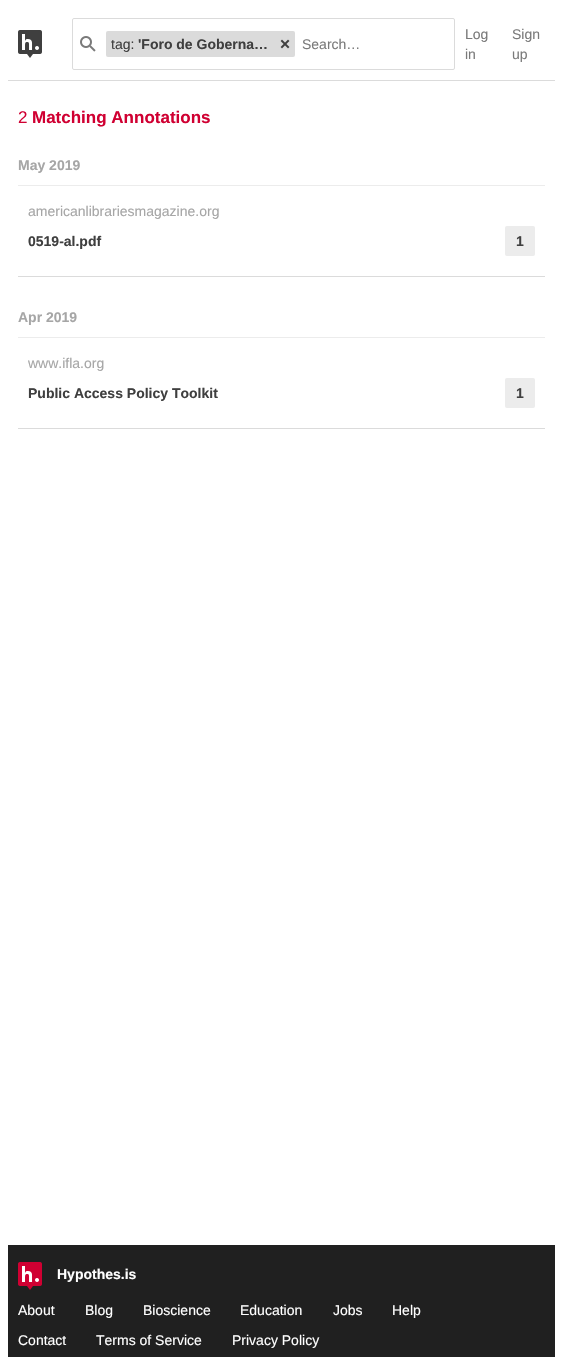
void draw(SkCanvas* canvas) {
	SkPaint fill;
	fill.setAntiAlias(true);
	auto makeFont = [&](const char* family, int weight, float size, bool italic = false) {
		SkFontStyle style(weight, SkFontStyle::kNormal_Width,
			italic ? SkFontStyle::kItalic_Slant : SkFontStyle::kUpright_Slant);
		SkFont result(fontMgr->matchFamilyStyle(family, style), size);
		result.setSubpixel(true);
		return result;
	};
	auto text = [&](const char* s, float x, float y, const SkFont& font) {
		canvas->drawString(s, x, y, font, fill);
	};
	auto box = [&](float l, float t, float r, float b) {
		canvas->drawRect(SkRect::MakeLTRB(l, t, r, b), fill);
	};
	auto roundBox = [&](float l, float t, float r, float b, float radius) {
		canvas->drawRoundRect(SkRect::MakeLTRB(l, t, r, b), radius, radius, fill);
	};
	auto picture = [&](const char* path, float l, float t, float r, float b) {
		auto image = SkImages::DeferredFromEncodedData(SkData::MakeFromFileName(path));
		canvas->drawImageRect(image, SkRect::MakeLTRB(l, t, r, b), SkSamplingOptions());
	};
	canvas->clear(0xFFFFFFFF);
	fill.setColor(0xFFDBDBDB);
	box(8, 80, 555, 81);
	picture("image0.png", 18, 30, 42, 58);
	fill.setStyle(SkPaint::kStroke_Style);
	fill.setStrokeWidth(1);
	canvas->drawRoundRect(SkRect::MakeLTRB(72.5f, 18.5f, 454.5f, 69.5f), 1.5f, 1.5f, fill);
	picture("image1.png", 80, 36, 96, 52);
	fill.setStyle(SkPaint::kFill_Style);
	roundBox(106, 31, 295, 57, 2);
	picture("image2.png", 280, 39, 290, 49);
	fill.setColor(0xFFECECEC);
	box(18, 185, 545, 186);
	fill.setColor(0xFFDBDBDB);
	box(18, 276, 545, 277);
	fill.setColor(0xFFECECEC);
	roundBox(505, 226, 535, 256, 2);
	box(18, 337, 545, 338);
	fill.setColor(0xFFDBDBDB);
	box(18, 428, 545, 429);
	fill.setColor(0xFFECECEC);
	roundBox(505, 378, 535, 408, 2);
	fill.setColor(0xFF202020);
	box(8, 1245, 555, 1357);
	picture("image3.png", 18, 1262, 42, 1290);
	auto font1 = makeFont("Liberation Sans", 400, 14);
	fill.setColor(0xFF3F3F3F);
	text("tag:", 111, 49, font1);
	auto font2 = makeFont("Liberation Sans", 700, 14);
	text("'Foro de Goberna…", 138, 49, font2);
	fill.setColor(0xFF7A7A7A);
	text("Search…", 302, 49, font1);
	text("Log", 465, 39, font1);
	text("in", 465, 59, font1);
	text("Sign", 512, 39, font1);
	text("up", 512, 59, font1);
	auto font3 = makeFont("Liberation Sans", 400, 17);
	fill.setColor(0xFFD00032);
	text("2", 18, 123, font3);
	auto font4 = makeFont("Liberation Sans", 700, 17);
	text("Matching Annotations", 32, 123, font4);
	fill.setColor(0xFFA6A6A6);
	text("May 2019", 18, 170, font2);
	text("americanlibrariesmagazine.org", 28, 216, font1);
	fill.setColor(0xFF3F3F3F);
	text("0519-al.pdf", 28, 246, font2);
	text("1", 516, 246, font2);
	fill.setColor(0xFFA6A6A6);
	text("Apr 2019", 18, 322, font2);
	text("www.ifla.org", 28, 368, font1);
	fill.setColor(0xFF3F3F3F);
	text("Public Access Policy Toolkit", 28, 398, font2);
	text("1", 516, 398, font2);
	fill.setColor(0xFFFFFFFF);
	text("Hypothes.is", 57, 1279, font2);
	text("About", 18, 1315, font1);
	text("Blog", 85, 1315, font1);
	text("Bioscience", 143, 1315, font1);
	text("Education", 240, 1315, font1);
	text("Jobs", 333, 1315, font1);
	text("Help", 392, 1315, font1);
	text("Contact", 18, 1345, font1);
	text("Terms of Service", 96, 1345, font1);
	text("Privacy Policy", 232, 1345, font1);
}
